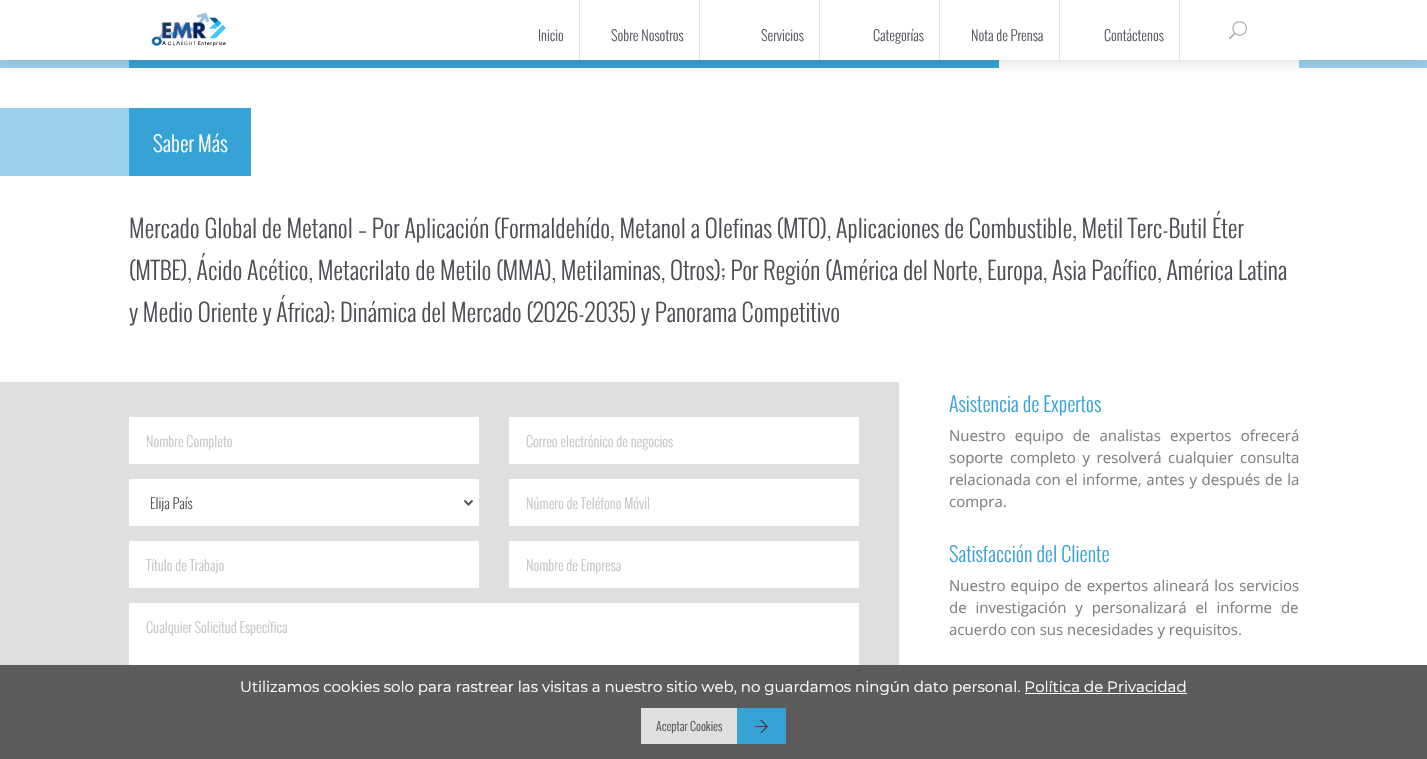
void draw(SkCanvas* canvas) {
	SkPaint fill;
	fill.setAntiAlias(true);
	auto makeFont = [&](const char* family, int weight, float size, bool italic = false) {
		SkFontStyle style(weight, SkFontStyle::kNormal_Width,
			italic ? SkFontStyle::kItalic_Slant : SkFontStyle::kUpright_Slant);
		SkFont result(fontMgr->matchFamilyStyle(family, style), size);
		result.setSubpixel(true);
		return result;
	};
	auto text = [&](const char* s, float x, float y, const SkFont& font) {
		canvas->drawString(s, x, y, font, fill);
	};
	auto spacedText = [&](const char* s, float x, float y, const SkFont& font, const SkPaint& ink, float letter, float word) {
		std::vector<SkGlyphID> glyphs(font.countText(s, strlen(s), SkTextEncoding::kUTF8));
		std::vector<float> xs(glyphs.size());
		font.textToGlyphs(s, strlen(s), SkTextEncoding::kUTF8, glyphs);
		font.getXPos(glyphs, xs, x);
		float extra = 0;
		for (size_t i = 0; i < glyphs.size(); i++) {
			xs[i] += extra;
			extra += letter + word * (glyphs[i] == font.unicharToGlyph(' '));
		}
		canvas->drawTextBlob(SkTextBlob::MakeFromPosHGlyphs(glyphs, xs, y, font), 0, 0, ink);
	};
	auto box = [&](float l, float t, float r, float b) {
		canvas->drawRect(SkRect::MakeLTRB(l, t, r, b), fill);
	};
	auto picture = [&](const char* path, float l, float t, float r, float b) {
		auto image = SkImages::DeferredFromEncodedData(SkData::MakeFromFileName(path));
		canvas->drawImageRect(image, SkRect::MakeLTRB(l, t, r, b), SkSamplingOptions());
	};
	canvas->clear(0xFFFFFFFF);
	fill.setColor(0xFF9BD1EB);
	box(0, 60, 1427, 68);
	fill.setColor(0xFF37A2D6);
	box(129, 60, 999, 68);
	fill.setColor(0xFFFFFFFF);
	box(999, 60, 1299, 68);
	fill.setColor(0x26000000);
	fill.setMaskFilter(SkMaskFilter::MakeBlur(kNormal_SkBlurStyle, 7.5f));
	canvas->drawRect(SkRect::MakeLTRB(0, 1, 1427, 61), fill);
	fill.setMaskFilter(nullptr);
	fill.setColor(0xFFFFFFFF);
	box(0, 0, 1427, 60);
	picture("image0.png", 151, 12, 226, 47);
	fill.setColor(0xFFE3E3E3);
	box(579, 0, 580, 60);
	box(699, 0, 700, 60);
	box(819, 0, 820, 60);
	box(939, 0, 940, 60);
	box(1059, 0, 1060, 60);
	box(1179, 0, 1180, 60);
	picture("image1.png", 1229, 21, 1247, 40);
	fill.setColor(0xFF9BD1EB);
	box(0, 108, 129, 176);
	fill.setColor(0xFF37A2D6);
	box(129, 108, 251, 176);
	fill.setColor(0xFFDFDFDF);
	box(0, 382, 899, 665);
	fill.setColor(0xFFFFFFFF);
	box(129, 417, 479, 464);
	box(509, 417, 859, 464);
	box(129, 479, 479, 526);
	fill.setStyle(SkPaint::kStroke_Style);
	fill.setStrokeWidth(2);
	fill.setColor(0xFF555555);
	canvas->drawPath(SkPathBuilder().moveTo(464.5f, 500.5f).lineTo(468.5f, 504.5f).lineTo(472.5f, 500.5f).detach(), fill);
	fill.setStyle(SkPaint::kFill_Style);
	fill.setColor(0xFFFFFFFF);
	box(509, 479, 859, 526);
	box(129, 541, 479, 588);
	box(509, 541, 859, 588);
	box(129, 603, 859, 665);
	fill.setColor(0xFF5C5C5B);
	box(0, 665, 1427, 759);
	fill.setColor(0xFFFFFFFF);
	box(1025, 693, 1187, 694);
	fill.setColor(0xFFDFDFDF);
	box(641, 708, 737, 744);
	fill.setColor(0xFF37A2D6);
	box(737, 708, 786, 744);
	picture("image2.png", 755, 720, 768, 733);
	auto font1 = makeFont("Oswald", 300, 14);
	fill.setColor(0xFF565A60);
	text("Inicio", 538, 41, font1);
	text("Sobre Nosotros", 611, 41, font1);
	text("Servicios", 761, 41, font1);
	text("Categorías", 873, 41, font1);
	text("Nota de Prensa", 971, 41, font1);
	text("Contáctenos", 1104, 41, font1);
	auto font2 = makeFont("Oswald", 300, 21);
	fill.setColor(0xFFFFFFFF);
	text("Saber Más", 153, 152, font2);
	auto font3 = makeFont("Oswald", 300, 24);
	fill.setColor(0xFF4B4E53);
	text("Mercado Global de Metanol – Por Aplicación (Formaldehído, Metanol a Olefinas (MTO), Aplicaciones de Combustible, Metil Terc-Butil Éter", 129, 238, font3);
	text("(MTBE), Ácido Acético, Metacrilato de Metilo (MMA), Metilaminas, Otros); Por Región (América del Norte, Europa, Asia Pacífico, América Latina", 129, 280, font3);
	text("y Medio Oriente y África); Dinámica del Mercado (2026-2035) y Panorama Competitivo", 129, 322, font3);
	fill.setColor(0xFFC4C5C5);
	text("Nombre Completo", 146, 447, font1);
	text("Correo electrónico de negocios", 526, 447, font1);
	fill.setColor(0xFF555555);
	text("Elija País", 150, 509, font1);
	fill.setColor(0xFFC4C5C5);
	text("Número de Teléfono Móvil", 526, 509, font1);
	text("Título de Trabajo", 146, 571, font1);
	text("Nombre de Empresa", 526, 571, font1);
	text("Cualquier Solicitud Específica", 146, 633, font1);
	auto font4 = makeFont("Oswald", 300, 20);
	fill.setColor(0xFF37A2D6);
	text("Asistencia de Expertos", 949, 412, font4);
	auto font5 = makeFont("Open Sans", 400, 15);
	fill.setColor(0xFF7E8082);
	spacedText("Nuestro equipo de analistas expertos ofrecerá", 949, 441, font5, fill, 0, 5.25f);
	spacedText("soporte completo y resolverá cualquier consulta", 949, 463, font5, fill, 0, 2.75f);
	spacedText("relacionada con el informe, antes y después de la", 949, 485, font5, fill, 0, 0.75f);
	text("compra.", 949, 507, font5);
	fill.setColor(0xFF37A2D6);
	text("Satisfacción del Cliente", 949, 562, font4);
	fill.setColor(0xFF7E8082);
	spacedText("Nuestro equipo de expertos alineará los servicios", 949, 591, font5, fill, 0, 1);
	spacedText("de investigación y personalizará el informe de", 949, 613, font5, fill, 0, 5);
	text("acuerdo con sus necesidades y requisitos.", 949, 635, font5);
	auto font6 = makeFont("Montserrat", 400, 15);
	fill.setColor(0xFFFFFFFF);
	text("Utilizamos cookies solo para rastrear las visitas a nuestro sitio web, no guardamos ningún dato personal. Política de Privacidad", 240, 692, font6);
	auto font7 = makeFont("Oswald", 300, 12);
	fill.setColor(0xFF4B4E53);
	text("Aceptar Cookies", 656, 731, font7);
}
